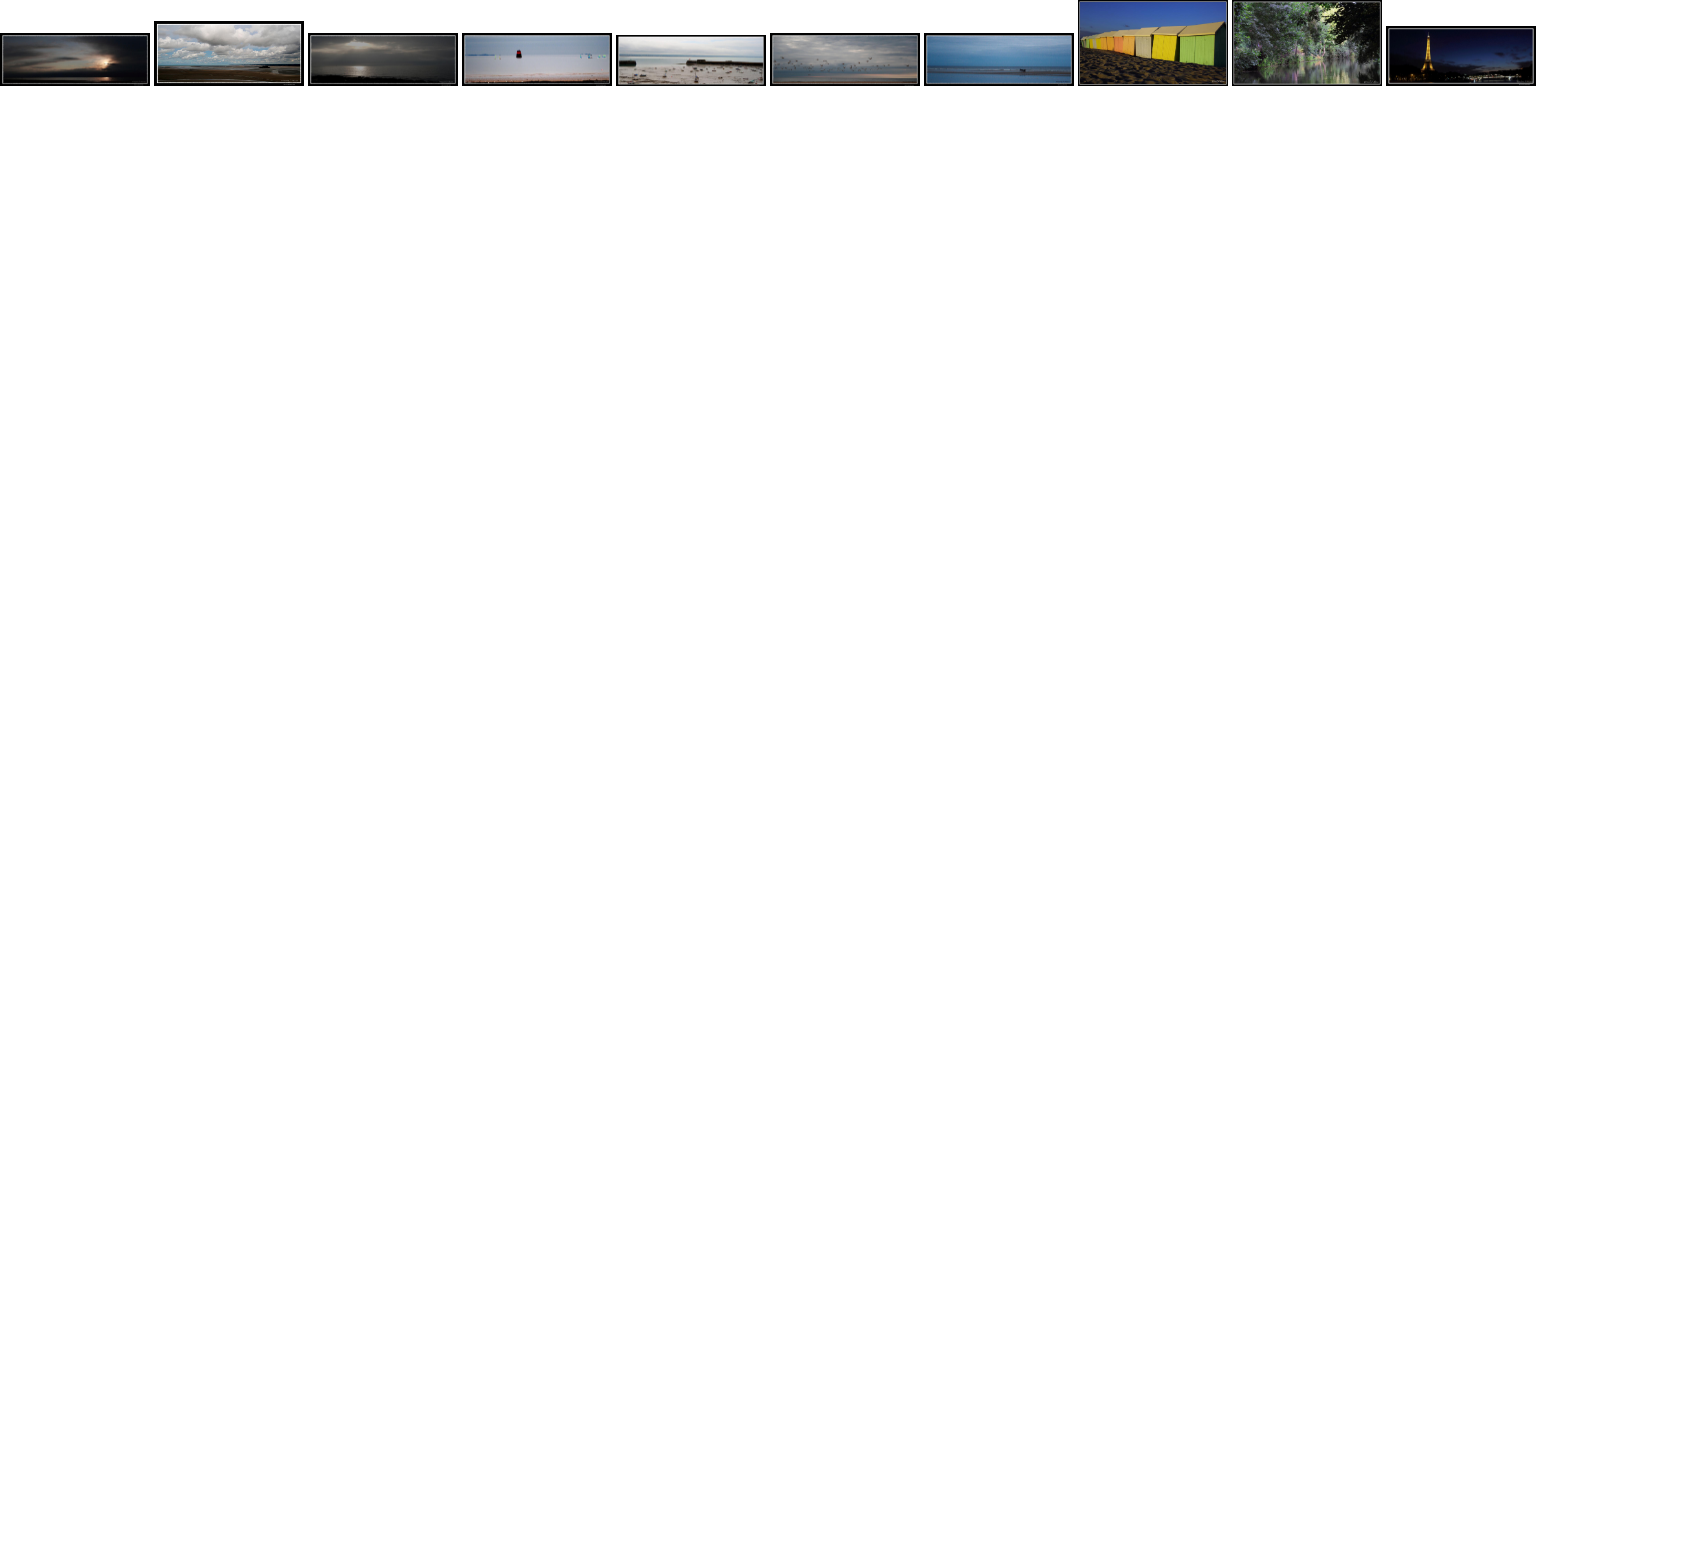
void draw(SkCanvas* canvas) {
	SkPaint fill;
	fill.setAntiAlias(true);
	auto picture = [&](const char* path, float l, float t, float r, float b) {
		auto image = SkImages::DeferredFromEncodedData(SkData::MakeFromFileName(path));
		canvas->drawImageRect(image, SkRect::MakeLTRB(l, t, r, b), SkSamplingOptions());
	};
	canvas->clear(0xFFFFFFFF);
	picture("image0.png", 0, 33, 150, 86);
	picture("image1.png", 154, 21, 304, 86);
	picture("image2.png", 308, 33, 458, 86);
	picture("image3.png", 462, 33, 612, 86);
	picture("image4.png", 616, 35, 766, 86);
	picture("image5.png", 770, 33, 920, 86);
	picture("image6.png", 924, 33, 1074, 86);
	picture("image7.png", 1078, 0, 1228, 86);
	picture("image8.png", 1232, 0, 1382, 86);
	picture("image9.png", 1386, 26, 1536, 86);
}
